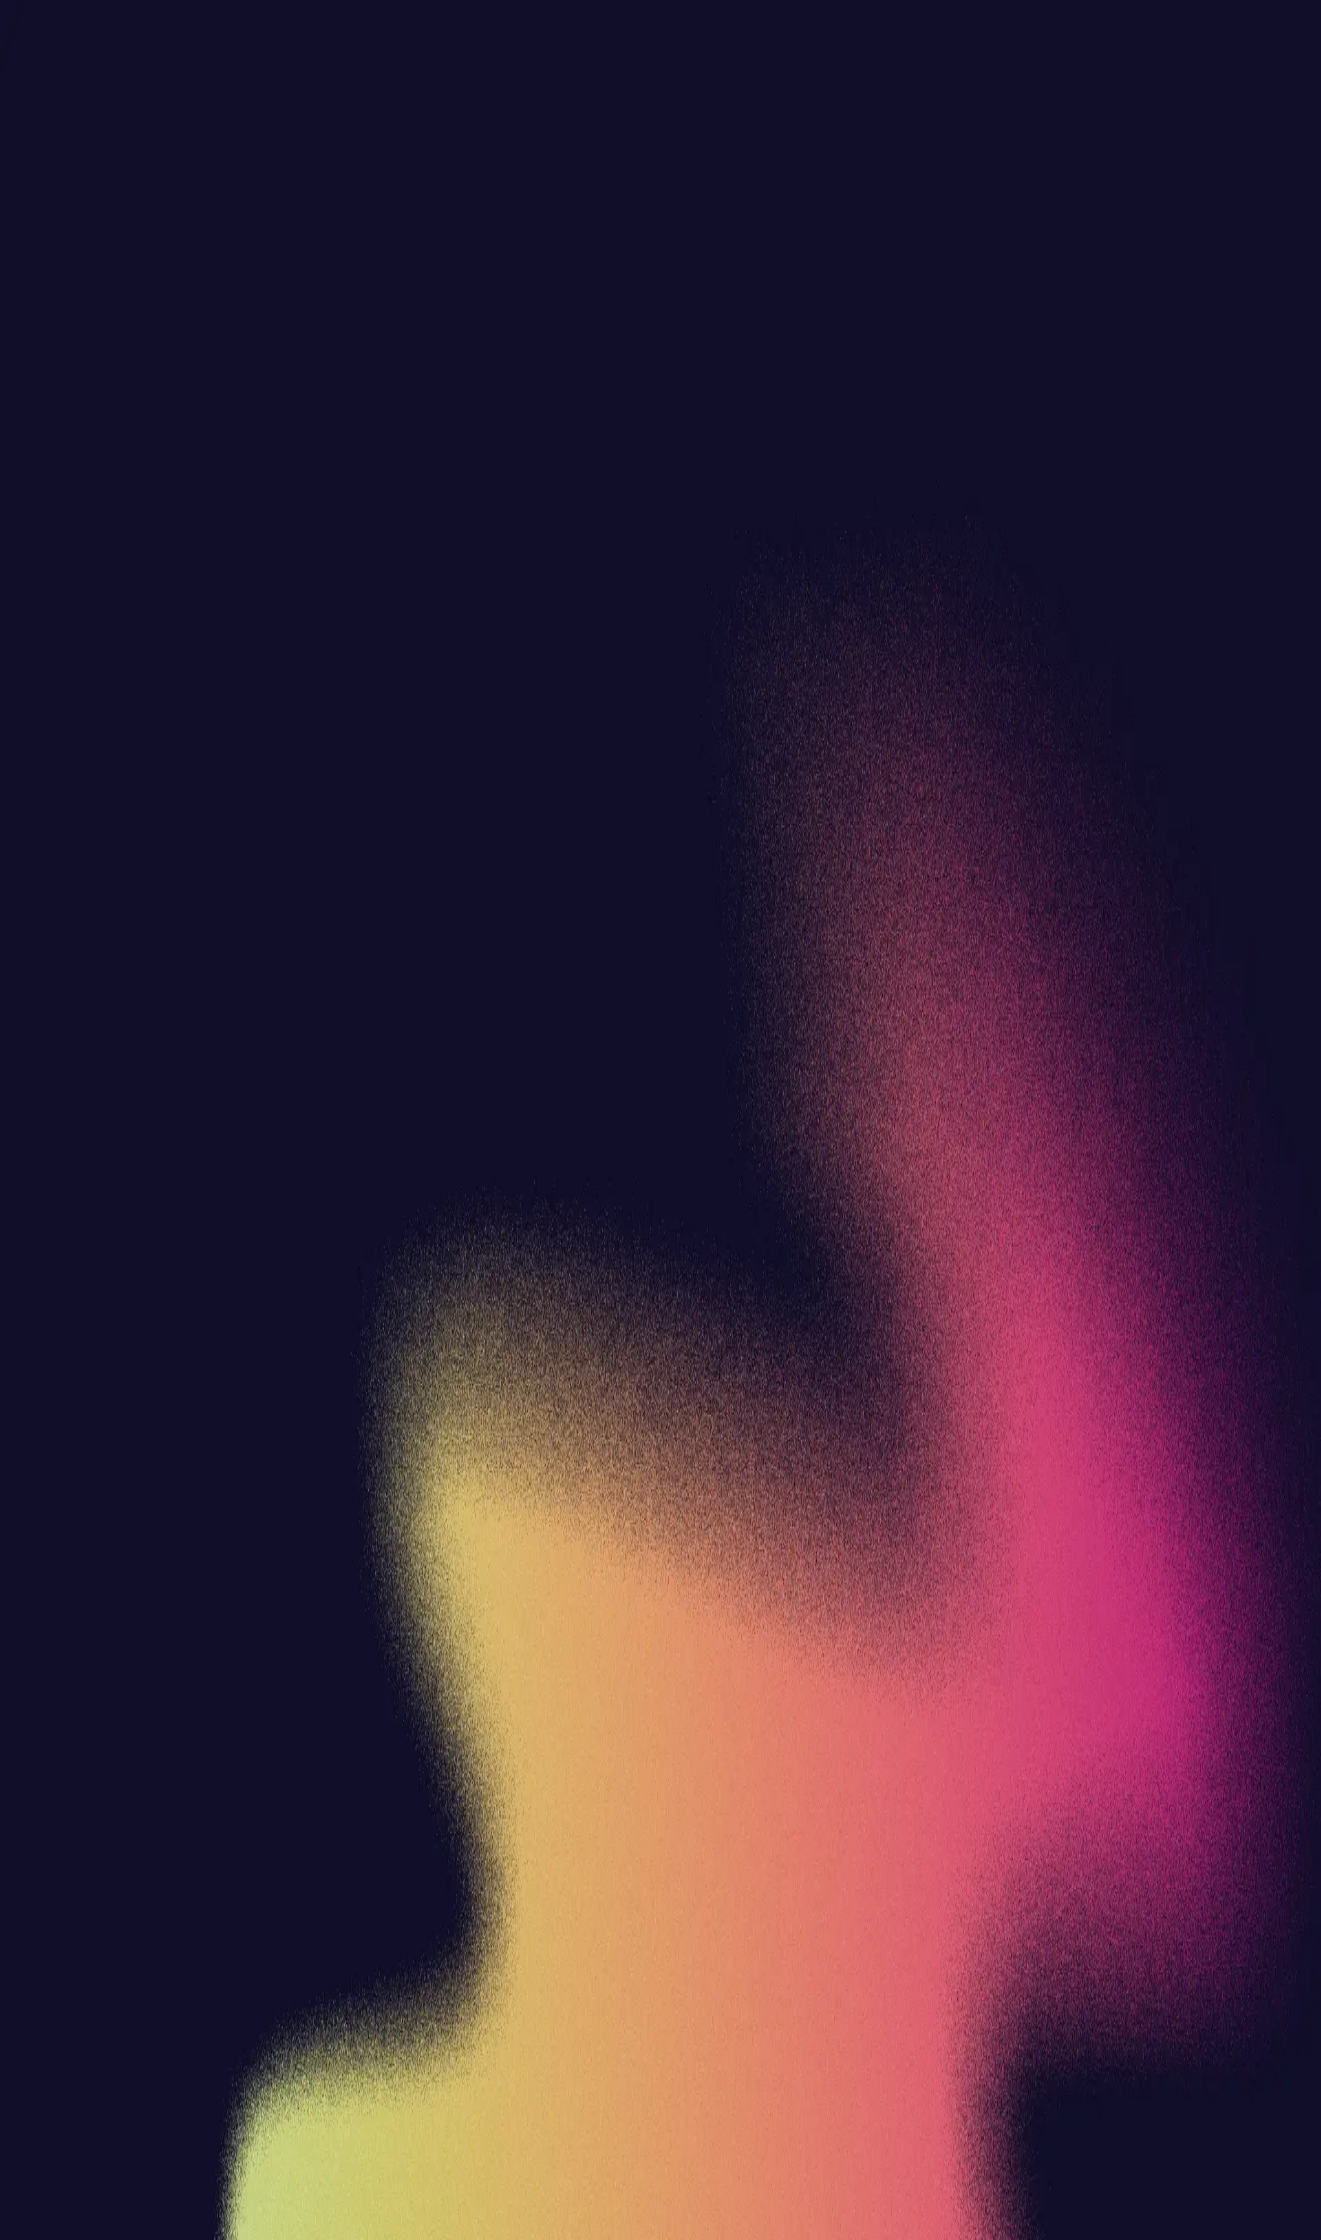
void draw(SkCanvas* canvas) {
	SkPaint fill;
	fill.setAntiAlias(true);
	auto picture = [&](const char* path, float l, float t, float r, float b) {
		auto image = SkImages::DeferredFromEncodedData(SkData::MakeFromFileName(path));
		canvas->drawImageRect(image, SkRect::MakeLTRB(l, t, r, b), SkSamplingOptions());
	};
	canvas->clear(0xFFFFFFFF);
	picture("image0.png", 0, 0, 1321, 2240);
}
